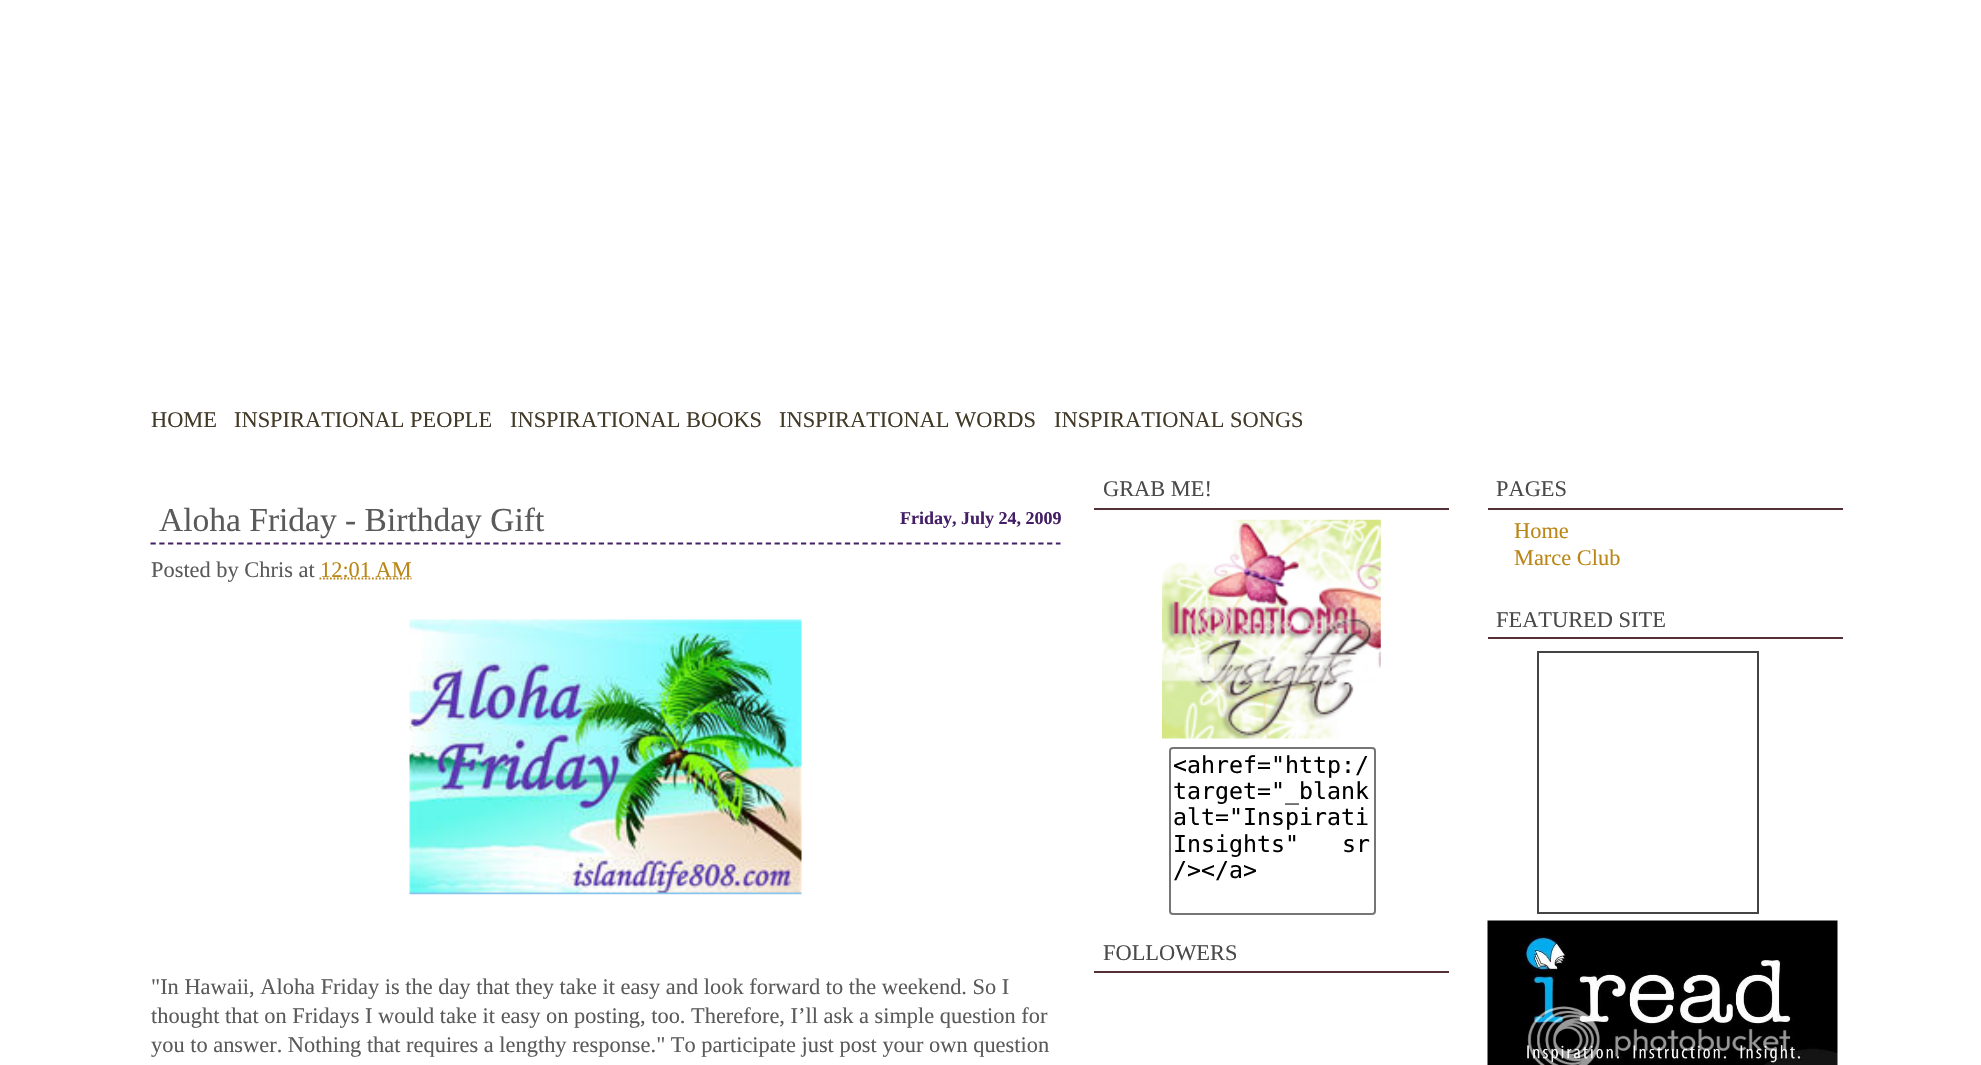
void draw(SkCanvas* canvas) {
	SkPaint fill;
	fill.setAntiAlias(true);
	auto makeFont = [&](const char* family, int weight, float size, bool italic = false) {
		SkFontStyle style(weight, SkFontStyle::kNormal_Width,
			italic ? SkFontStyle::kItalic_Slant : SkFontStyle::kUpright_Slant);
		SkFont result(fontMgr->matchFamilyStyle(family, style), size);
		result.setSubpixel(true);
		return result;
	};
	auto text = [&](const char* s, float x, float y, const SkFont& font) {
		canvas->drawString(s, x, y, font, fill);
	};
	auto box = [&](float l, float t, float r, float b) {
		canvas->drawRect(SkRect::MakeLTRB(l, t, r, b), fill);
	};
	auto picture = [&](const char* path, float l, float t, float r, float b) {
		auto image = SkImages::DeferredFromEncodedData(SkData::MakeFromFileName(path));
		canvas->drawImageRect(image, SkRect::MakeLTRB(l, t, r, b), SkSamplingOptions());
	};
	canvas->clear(0xFFFFFFFF);
	fill.setStyle(SkPaint::kStroke_Style);
	fill.setStrokeWidth(1.8f);
	fill.setColor(0xFF441F65);
	fill.setPathEffect(SkDashPathEffect::Make({{5.25f, 3.54f}}, 0));
	canvas->drawPath(SkPathBuilder().moveTo(150.5f, 543.5f).lineTo(1060.5f, 543.5f).detach(), fill);
	fill.setPathEffect(nullptr);
	fill.setColor(0xFFBA8616);
	fill.setPathEffect(SkDashPathEffect::Make({{1.75f, 1.75f}}, 0));
	canvas->drawPath(SkPathBuilder().moveTo(319.5f, 578.5f).lineTo(411.5f, 578.5f).detach(), fill);
	fill.setPathEffect(nullptr);
	picture("image0.png", 409, 619, 802, 895);
	fill.setStyle(SkPaint::kFill_Style);
	fill.setColor(0xFF533136);
	box(1094, 508, 1449, 510);
	picture("image1.png", 1162, 519, 1381, 739);
	fill.setStyle(SkPaint::kStroke_Style);
	fill.setStrokeWidth(2);
	fill.setColor(0xFF767676);
	canvas->drawRoundRect(SkRect::MakeLTRB(1170, 748, 1375, 914), 3, 3, fill);
	fill.setStyle(SkPaint::kFill_Style);
	fill.setColor(0xFF533136);
	box(1094, 971, 1449, 973);
	box(1488, 508, 1843, 510);
	box(1488, 637, 1843, 639);
	fill.setStyle(SkPaint::kStroke_Style);
	fill.setColor(0xFF444444);
	canvas->drawRect(SkRect::MakeLTRB(1538, 652, 1758, 913), fill);
	picture("image2.png", 1487, 920, 1838, 1065);
	auto font1 = makeFont("Liberation Serif", 400, 22.4f);
	fill.setStyle(SkPaint::kFill_Style);
	fill.setColor(0xFF423927);
	text("HOME", 151, 427, font1);
	text("INSPIRATIONAL PEOPLE", 234, 427, font1);
	text("INSPIRATIONAL BOOKS", 510, 427, font1);
	text("INSPIRATIONAL WORDS", 779, 427, font1);
	text("INSPIRATIONAL SONGS", 1054, 427, font1);
	auto font2 = makeFont("Liberation Serif", 400, 33.5f);
	fill.setColor(0xFF5A5A5A);
	text("Aloha Friday - Birthday Gift", 159, 531, font2);
	text("Posted by Chris at", 151, 577, font1);
	fill.setColor(0xFFBA8616);
	text("12:01 AM", 320, 577, font1);
	fill.setColor(0xFF5A5A5A);
	text("\"In Hawaii, Aloha Friday is the day that they take it easy and look forward to the weekend. So I", 151, 994, font1);
	text("thought that on Fridays I would take it easy on posting, too. Therefore, I’ll ask a simple question for", 151, 1023, font1);
	text("you to answer. Nothing that requires a lengthy response.\" To participate just post your own question", 151, 1052, font1);
	auto font3 = makeFont("Liberation Serif", 700, 18);
	fill.setColor(0xFF441F65);
	text("Friday, July 24, 2009", 900, 524, font3);
	fill.setColor(0xFF4A4A4A);
	text("GRAB ME!", 1103, 496, font1);
	auto font4 = makeFont("DejaVu Sans Mono", 400, 23.25f);
	fill.setColor(0xFF000000);
	text("<ahref=\"http:/", 1173, 773, font4);
	text("target=\"_blank", 1173, 799, font4);
	text("alt=\"Inspirati", 1173, 825, font4);
	text("Insights\"", 1173, 852, font4);
	text("sr", 1342, 852, font4);
	text("/></a>", 1173, 878, font4);
	fill.setColor(0xFF4A4A4A);
	text("FOLLOWERS", 1103, 960, font1);
	text("PAGES", 1496, 496, font1);
	fill.setColor(0xFFBA8616);
	text("Home", 1514, 538, font1);
	text("Marce Club", 1514, 565, font1);
	fill.setColor(0xFF4A4A4A);
	text("FEATURED SITE", 1496, 627, font1);
}
